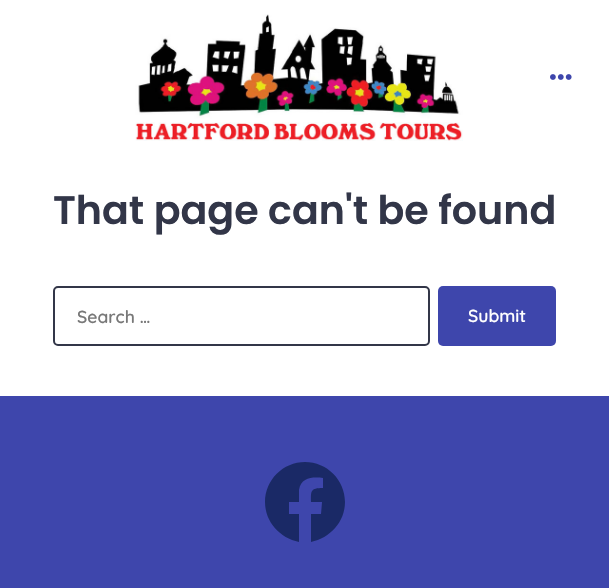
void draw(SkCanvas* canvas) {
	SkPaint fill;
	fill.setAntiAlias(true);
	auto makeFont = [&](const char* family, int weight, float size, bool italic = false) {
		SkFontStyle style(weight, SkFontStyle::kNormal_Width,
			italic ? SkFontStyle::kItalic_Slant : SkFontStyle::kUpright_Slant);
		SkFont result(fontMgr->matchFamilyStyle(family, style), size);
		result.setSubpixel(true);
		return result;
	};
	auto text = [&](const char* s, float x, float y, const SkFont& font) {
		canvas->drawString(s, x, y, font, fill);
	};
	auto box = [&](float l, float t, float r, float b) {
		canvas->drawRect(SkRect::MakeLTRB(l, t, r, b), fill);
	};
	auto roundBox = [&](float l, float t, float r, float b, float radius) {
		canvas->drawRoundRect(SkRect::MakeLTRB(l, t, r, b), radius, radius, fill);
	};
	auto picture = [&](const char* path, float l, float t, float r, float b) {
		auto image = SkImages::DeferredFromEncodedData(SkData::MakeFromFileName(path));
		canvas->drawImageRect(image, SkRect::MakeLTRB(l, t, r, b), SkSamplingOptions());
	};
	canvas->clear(0xFFFFFFFF);
	picture("image0.png", 135, 14, 463, 141);
	picture("image1.png", 550, 74, 572, 80);
	fill.setStyle(SkPaint::kStroke_Style);
	fill.setStrokeWidth(2);
	fill.setColor(0xFF323648);
	canvas->drawRoundRect(SkRect::MakeLTRB(54, 287, 429, 345), 4, 4, fill);
	fill.setStyle(SkPaint::kFill_Style);
	fill.setColor(0xFF3E46AC);
	roundBox(438, 286, 556, 346, 5);
	box(0, 396, 609, 588);
	fill.setColor(0xFF1A2966);
	canvas->drawPath(SkPathBuilder().moveTo(305, 462).cubicTo(283, 462, 265, 480, 265, 502).cubicTo(265, 522, 280, 538, 299, 542).lineTo(299, 514).lineTo(289, 514).lineTo(289, 502).lineTo(299, 502).lineTo(299, 490).cubicTo(301, 477, 313, 477, 323, 478).lineTo(323, 488).cubicTo(310, 488, 311, 491, 311, 502).lineTo(322, 502).lineTo(321, 514).lineTo(311, 514).lineTo(311, 542).cubicTo(330, 538, 345, 522, 345, 502).cubicTo(345, 480, 327, 462, 305, 462).close().detach(), fill);
	auto font1 = makeFont("Poppins", 600, 39.6f);
	fill.setColor(0xFF323648);
	text("That page can't be found", 53, 224, font1);
	auto font2 = makeFont("Quicksand", 600, 17.5f);
	fill.setColor(0xFF787878);
	text("Search …", 77, 323, font2);
	fill.setColor(0xFFFFFFFF);
	text("Submit", 468, 322, font2);
}
